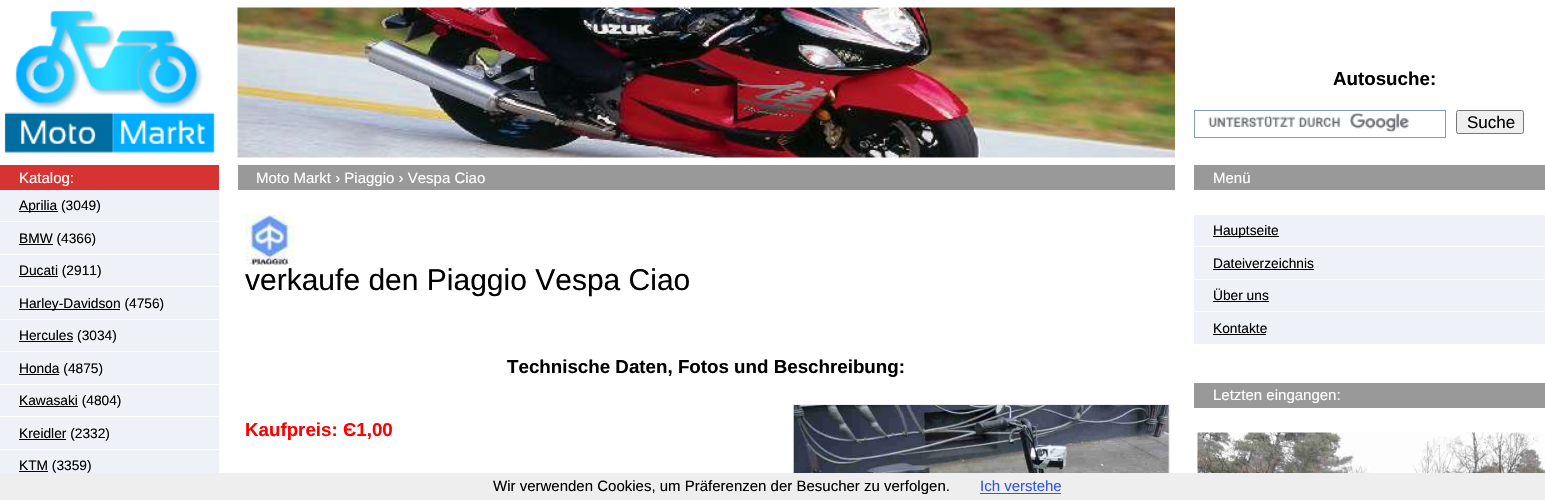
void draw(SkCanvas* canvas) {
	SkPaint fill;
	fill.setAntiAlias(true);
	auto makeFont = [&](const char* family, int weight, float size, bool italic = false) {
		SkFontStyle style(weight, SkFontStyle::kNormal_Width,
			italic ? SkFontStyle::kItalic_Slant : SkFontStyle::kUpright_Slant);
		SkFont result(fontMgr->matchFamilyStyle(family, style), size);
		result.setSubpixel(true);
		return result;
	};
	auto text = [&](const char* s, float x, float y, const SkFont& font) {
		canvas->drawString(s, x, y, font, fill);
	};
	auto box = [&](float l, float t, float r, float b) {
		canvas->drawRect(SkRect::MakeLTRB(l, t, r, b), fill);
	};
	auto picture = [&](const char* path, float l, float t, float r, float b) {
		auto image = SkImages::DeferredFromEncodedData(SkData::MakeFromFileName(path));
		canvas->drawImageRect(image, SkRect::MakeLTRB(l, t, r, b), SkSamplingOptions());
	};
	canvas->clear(0xFFFFFFFF);
	picture("image0.png", 4, 10, 216, 153);
	picture("image1.png", 237, 7, 1175, 158);
	fill.setStyle(SkPaint::kStroke_Style);
	fill.setStrokeWidth(1);
	fill.setColor(0xFF7E9DB9);
	canvas->drawRect(SkRect::MakeLTRB(1194.5f, 110.5f, 1445.5f, 137.5f), fill);
	picture("image2.png", 1208, 113, 1409, 132);
	fill.setStyle(SkPaint::kFill_Style);
	fill.setColor(0xFFEFEFEF);
	canvas->drawRoundRect(SkRect::MakeLTRB(1456.5f, 110.5f, 1523.5f, 133.5f), 2, 2, fill);
	fill.setStyle(SkPaint::kStroke_Style);
	fill.setColor(0xFF767676);
	canvas->drawRoundRect(SkRect::MakeLTRB(1456.5f, 110.5f, 1523.5f, 133.5f), 2, 2, fill);
	fill.setStyle(SkPaint::kFill_Style);
	fill.setColor(0xFFD83333);
	box(0, 165, 219, 190);
	fill.setColor(0xFFEEF1F7);
	box(0, 190, 219, 473);
	fill.setColor(0xFFFFFFFF);
	box(0, 221, 219, 222);
	fill.setColor(0xFF000000);
	box(19, 211, 58, 212);
	fill.setColor(0xFFFFFFFF);
	box(0, 254, 219, 255);
	fill.setColor(0xFF000000);
	box(19, 244, 53, 245);
	fill.setColor(0xFFFFFFFF);
	box(0, 286, 219, 287);
	fill.setColor(0xFF000000);
	box(19, 276, 58, 277);
	fill.setColor(0xFFFFFFFF);
	box(0, 319, 219, 320);
	fill.setColor(0xFF000000);
	box(19, 309, 120, 310);
	fill.setColor(0xFFFFFFFF);
	box(0, 351, 219, 352);
	fill.setColor(0xFF000000);
	box(19, 341, 73, 342);
	fill.setColor(0xFFFFFFFF);
	box(0, 384, 219, 385);
	fill.setColor(0xFF000000);
	box(19, 374, 59, 375);
	fill.setColor(0xFFFFFFFF);
	box(0, 416, 219, 417);
	fill.setColor(0xFF000000);
	box(19, 406, 78, 407);
	fill.setColor(0xFFFFFFFF);
	box(0, 449, 219, 450);
	fill.setColor(0xFF000000);
	box(19, 439, 66, 440);
	box(19, 471, 48, 472);
	fill.setColor(0xFF999999);
	box(238, 165, 1175, 190);
	picture("image3.png", 245, 215, 295, 265);
	fill.setStyle(SkPaint::kStroke_Style);
	fill.setColor(0xFFEEEEEE);
	canvas->drawRect(SkRect::MakeLTRB(793.5f, 404.5f, 1169.5f, 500.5f), fill);
	picture("image4.png", 793, 405, 1169, 473);
	fill.setStyle(SkPaint::kFill_Style);
	fill.setColor(0xFF999999);
	box(1194, 165, 1545, 190);
	fill.setColor(0xFFEEF1F7);
	box(1194, 215, 1545, 344);
	fill.setColor(0xFFFFFFFF);
	box(1194, 246, 1545, 247);
	fill.setColor(0xFF000000);
	box(1213, 236, 1279, 237);
	fill.setColor(0xFFFFFFFF);
	box(1194, 279, 1545, 280);
	fill.setColor(0xFF000000);
	box(1213, 269, 1314, 270);
	fill.setColor(0xFFFFFFFF);
	box(1194, 311, 1545, 312);
	fill.setColor(0xFF000000);
	box(1213, 301, 1269, 302);
	box(1213, 334, 1266, 335);
	fill.setColor(0xFF999999);
	box(1194, 383, 1545, 408);
	picture("image5.png", 1197, 432, 1545, 473);
	fill.setColor(0xFFEEEEEE);
	box(0, 473, 1545, 500);
	fill.setColor(0xFF3355E7);
	box(980, 493, 1061, 494);
	auto font1 = makeFont("Liberation Sans", 700, 18.75f);
	fill.setColor(0xFF000000);
	text("Autosuche:", 1333, 85, font1);
	auto font2 = makeFont("Liberation Sans", 400, 17);
	text("Suche", 1467, 128, font2);
	auto font3 = makeFont("Liberation Sans", 400, 15);
	fill.setColor(0xFFFFFFFF);
	text("Katalog:", 19, 183, font3);
	auto font4 = makeFont("Liberation Sans", 400, 13.75f);
	fill.setColor(0xFF000000);
	text("Aprilia (3049)", 19, 210, font4);
	text("BMW (4366)", 19, 243, font4);
	text("Ducati (2911)", 19, 275, font4);
	text("Harley-Davidson (4756)", 19, 308, font4);
	text("Hercules (3034)", 19, 340, font4);
	text("Honda (4875)", 19, 373, font4);
	text("Kawasaki (4804)", 19, 405, font4);
	text("Kreidler (2332)", 19, 438, font4);
	text("KTM (3359)", 19, 470, font4);
	fill.setColor(0xFFFFFFFF);
	text("Moto Markt › Piaggio › Vespa Ciao", 256, 183, font3);
	auto font5 = makeFont("Liberation Sans", 400, 30);
	fill.setColor(0xFF000000);
	text("verkaufe den Piaggio Vespa Ciao", 245, 290, font5);
	text("Technische Daten, Fotos und Beschreibung:", 507, 373, font1);
	fill.setColor(0xFFFF0000);
	text("Kaufpreis: Є1,00", 245, 436, font1);
	fill.setColor(0xFFFFFFFF);
	text("Menü", 1213, 183, font3);
	fill.setColor(0xFF000000);
	text("Hauptseite", 1213, 235, font4);
	text("Dateiverzeichnis", 1213, 268, font4);
	text("Über uns", 1213, 300, font4);
	text("Kontakte", 1213, 333, font4);
	fill.setColor(0xFFFFFFFF);
	text("Letzten eingangen:", 1213, 400, font3);
	fill.setColor(0xFF000000);
	text("Wir verwenden Cookies, um Präferenzen der Besucher zu verfolgen.", 493, 491, font3);
	fill.setColor(0xFF3355E7);
	text("Ich verstehe", 980, 491, font3);
}
